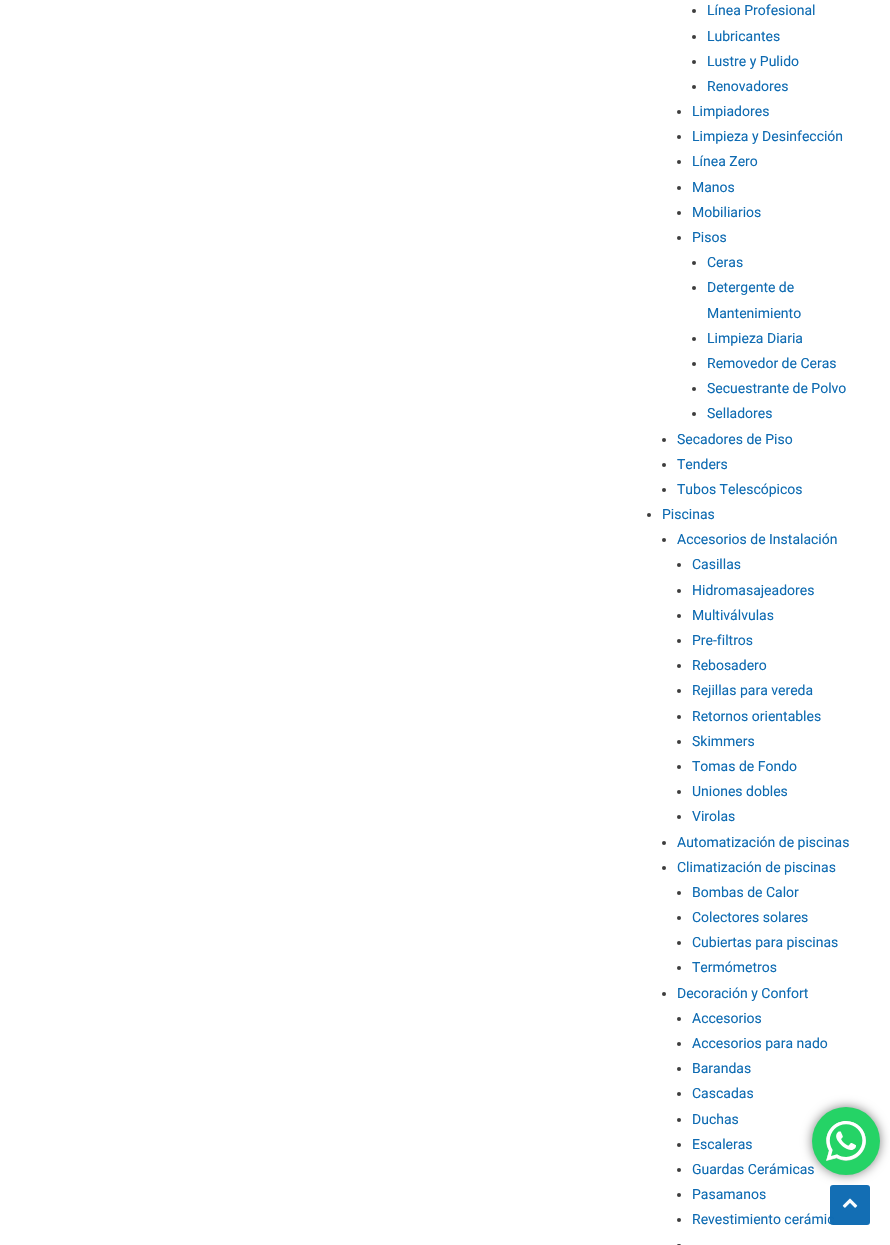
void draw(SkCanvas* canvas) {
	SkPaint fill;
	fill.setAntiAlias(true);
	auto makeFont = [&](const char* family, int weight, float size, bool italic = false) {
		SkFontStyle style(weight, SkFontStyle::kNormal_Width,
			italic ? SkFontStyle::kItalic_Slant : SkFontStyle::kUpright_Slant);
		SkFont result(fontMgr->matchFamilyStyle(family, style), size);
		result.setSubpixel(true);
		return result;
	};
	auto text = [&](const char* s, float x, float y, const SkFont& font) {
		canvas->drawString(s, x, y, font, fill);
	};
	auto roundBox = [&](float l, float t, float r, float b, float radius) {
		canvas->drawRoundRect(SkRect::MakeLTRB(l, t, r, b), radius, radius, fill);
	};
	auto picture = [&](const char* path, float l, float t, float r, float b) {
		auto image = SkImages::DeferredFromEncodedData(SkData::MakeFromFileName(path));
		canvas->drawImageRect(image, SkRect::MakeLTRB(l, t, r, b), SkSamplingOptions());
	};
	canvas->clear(0xFFFFFFFF);
	fill.setColor(0xFF3D3D3D);
	canvas->drawCircle(694, 11, 2, fill);
	canvas->drawCircle(694, 37, 2, fill);
	canvas->drawCircle(694, 62, 2, fill);
	canvas->drawCircle(694, 87, 2, fill);
	canvas->drawCircle(679, 112, 2, fill);
	canvas->drawCircle(679, 137, 2, fill);
	canvas->drawCircle(679, 162, 2, fill);
	canvas->drawCircle(679, 188, 2, fill);
	canvas->drawCircle(679, 213, 2, fill);
	canvas->drawCircle(679, 238, 2, fill);
	canvas->drawCircle(694, 263, 2, fill);
	canvas->drawCircle(694, 288, 2, fill);
	canvas->drawCircle(694, 339, 2, fill);
	canvas->drawCircle(694, 364, 2, fill);
	canvas->drawCircle(694, 389, 2, fill);
	canvas->drawCircle(694, 414, 2, fill);
	canvas->drawCircle(664, 440, 2, fill);
	canvas->drawCircle(664, 465, 2, fill);
	canvas->drawCircle(664, 490, 2, fill);
	canvas->drawCircle(649, 515, 2, fill);
	canvas->drawCircle(664, 540, 2, fill);
	canvas->drawCircle(679, 565, 2, fill);
	canvas->drawCircle(679, 591, 2, fill);
	canvas->drawCircle(679, 616, 2, fill);
	canvas->drawCircle(679, 641, 2, fill);
	canvas->drawCircle(679, 666, 2, fill);
	canvas->drawCircle(679, 691, 2, fill);
	canvas->drawCircle(679, 717, 2, fill);
	canvas->drawCircle(679, 742, 2, fill);
	canvas->drawCircle(679, 767, 2, fill);
	canvas->drawCircle(679, 792, 2, fill);
	canvas->drawCircle(679, 817, 2, fill);
	canvas->drawCircle(664, 843, 2, fill);
	canvas->drawCircle(664, 868, 2, fill);
	canvas->drawCircle(679, 893, 2, fill);
	canvas->drawCircle(679, 918, 2, fill);
	canvas->drawCircle(679, 943, 2, fill);
	canvas->drawCircle(679, 968, 2, fill);
	canvas->drawCircle(664, 994, 2, fill);
	canvas->drawCircle(679, 1019, 2, fill);
	canvas->drawCircle(679, 1044, 2, fill);
	canvas->drawCircle(679, 1069, 2, fill);
	canvas->drawCircle(679, 1094, 2, fill);
	canvas->drawCircle(679, 1120, 2, fill);
	canvas->drawCircle(679, 1145, 2, fill);
	canvas->drawCircle(679, 1170, 2, fill);
	canvas->drawCircle(679, 1195, 2, fill);
	canvas->drawCircle(679, 1220, 2, fill);
	roundBox(677, 1244, 681, 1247, 2);
	auto font1 = makeFont("Roboto", 400, 14);
	fill.setColor(0xFF0E6BB2);
	text("Línea Profesional", 707, 15, font1);
	text("Lubricantes", 707, 41, font1);
	text("Lustre y Pulido", 707, 66, font1);
	text("Renovadores", 707, 91, font1);
	text("Limpiadores", 692, 116, font1);
	text("Limpieza y Desinfección", 692, 141, font1);
	text("Línea Zero", 692, 166, font1);
	text("Manos", 692, 192, font1);
	text("Mobiliarios", 692, 217, font1);
	text("Pisos", 692, 242, font1);
	text("Ceras", 707, 267, font1);
	text("Detergente de", 707, 292, font1);
	text("Mantenimiento", 707, 318, font1);
	text("Limpieza Diaria", 707, 343, font1);
	text("Removedor de Ceras", 707, 368, font1);
	text("Secuestrante de Polvo", 707, 393, font1);
	text("Selladores", 707, 418, font1);
	text("Secadores de Piso", 677, 444, font1);
	text("Tenders", 677, 469, font1);
	text("Tubos Telescópicos", 677, 494, font1);
	text("Piscinas", 662, 519, font1);
	text("Accesorios de Instalación", 677, 544, font1);
	text("Casillas", 692, 569, font1);
	text("Hidromasajeadores", 692, 595, font1);
	text("Multiválvulas", 692, 620, font1);
	text("Pre-filtros", 692, 645, font1);
	text("Rebosadero", 692, 670, font1);
	text("Rejillas para vereda", 692, 695, font1);
	text("Retornos orientables", 692, 721, font1);
	text("Skimmers", 692, 746, font1);
	text("Tomas de Fondo", 692, 771, font1);
	text("Uniones dobles", 692, 796, font1);
	text("Virolas", 692, 821, font1);
	text("Automatización de piscinas", 677, 847, font1);
	text("Climatización de piscinas", 677, 872, font1);
	text("Bombas de Calor", 692, 897, font1);
	text("Colectores solares", 692, 922, font1);
	text("Cubiertas para piscinas", 692, 947, font1);
	text("Termómetros", 692, 972, font1);
	text("Decoración y Confort", 677, 998, font1);
	text("Accesorios", 692, 1023, font1);
	text("Accesorios para nado", 692, 1048, font1);
	text("Barandas", 692, 1073, font1);
	text("Cascadas", 692, 1098, font1);
	text("Duchas", 692, 1124, font1);
	text("Escaleras", 692, 1149, font1);
	text("Guardas Cerámicas", 692, 1174, font1);
	text("Pasamanos", 692, 1199, font1);
	text("Revestimiento cerámic", 692, 1224, font1);
	fill.setColor(0xFA0E6BB2);
	roundBox(830, 1185, 870, 1225, 3);
	picture("image0.png", 842, 1198, 858, 1208);
	fill.setColor(0x80000000);
	fill.setMaskFilter(SkMaskFilter::MakeBlur(kNormal_SkBlurStyle, 5.5f));
	canvas->drawRoundRect(SkRect::MakeLTRB(812, 1107, 880, 1175), 34, 34, fill);
	fill.setMaskFilter(nullptr);
	fill.setColor(0xFF25D366);
	canvas->drawCircle(846, 1141, 34, fill);
	picture("image1.png", 826, 1121, 866, 1161);
}
